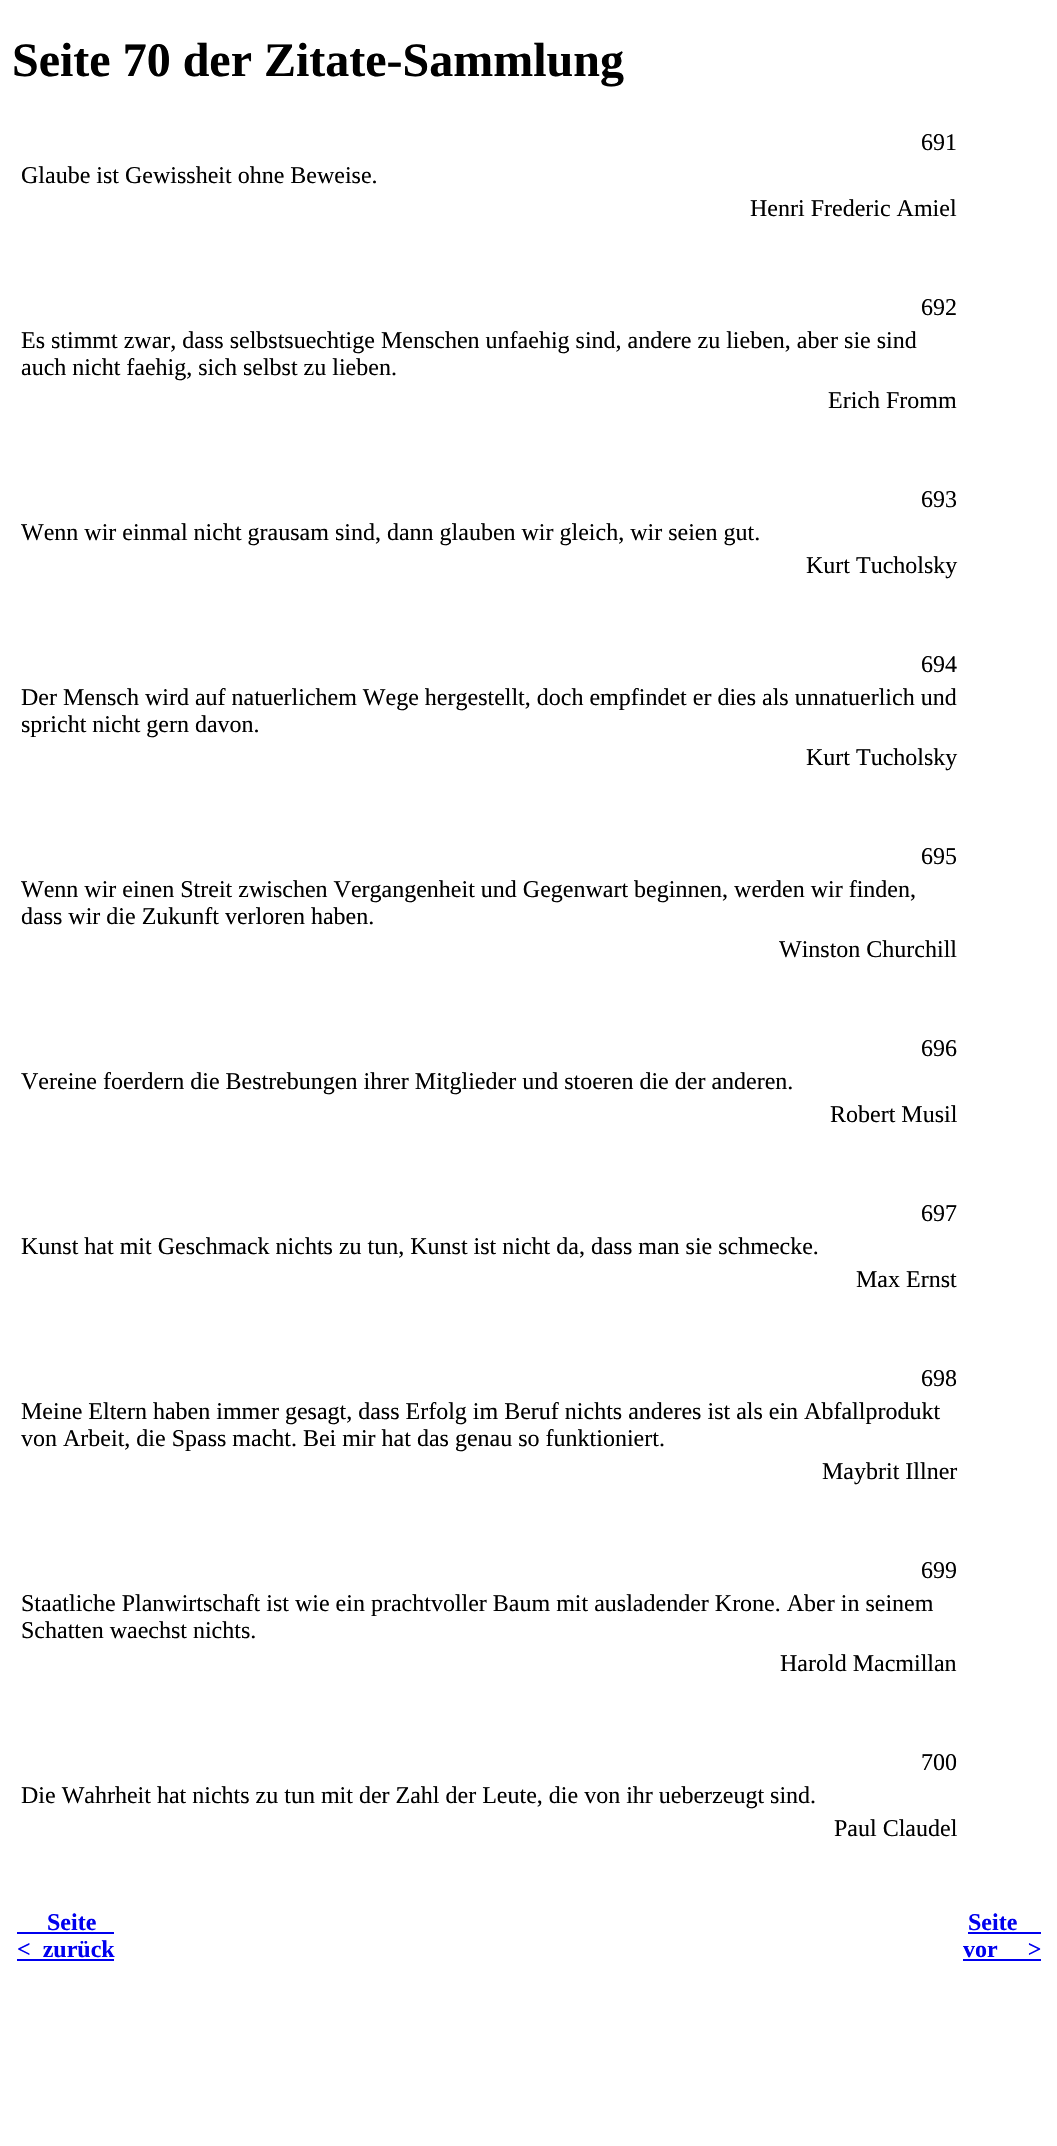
void draw(SkCanvas* canvas) {
	SkPaint fill;
	fill.setAntiAlias(true);
	auto makeFont = [&](const char* family, int weight, float size, bool italic = false) {
		SkFontStyle style(weight, SkFontStyle::kNormal_Width,
			italic ? SkFontStyle::kItalic_Slant : SkFontStyle::kUpright_Slant);
		SkFont result(fontMgr->matchFamilyStyle(family, style), size);
		result.setSubpixel(true);
		return result;
	};
	auto text = [&](const char* s, float x, float y, const SkFont& font) {
		canvas->drawString(s, x, y, font, fill);
	};
	auto box = [&](float l, float t, float r, float b) {
		canvas->drawRect(SkRect::MakeLTRB(l, t, r, b), fill);
	};
	canvas->clear(0xFFFFFFFF);
	fill.setColor(0xFF0000EE);
	box(17, 1932, 114, 1934);
	box(17, 1959, 114, 1961);
	box(968, 1932, 1041, 1934);
	box(963, 1959, 1041, 1961);
	auto font1 = makeFont("Liberation Serif", 700, 48);
	fill.setColor(0xFF000000);
	text("Seite 70 der Zitate-Sammlung", 12, 76, font1);
	auto font2 = makeFont("Liberation Serif", 400, 24);
	text("691", 921, 150, font2);
	text("Glaube ist Gewissheit ohne Beweise.", 21, 183, font2);
	text("Henri Frederic Amiel", 750, 216, font2);
	text("692", 921, 315, font2);
	text("Es stimmt zwar, dass selbstsuechtige Menschen unfaehig sind, andere zu lieben, aber sie sind", 21, 348, font2);
	text("auch nicht faehig, sich selbst zu lieben.", 21, 375, font2);
	text("Erich Fromm", 828, 408, font2);
	text("693", 921, 507, font2);
	text("Wenn wir einmal nicht grausam sind, dann glauben wir gleich, wir seien gut.", 21, 540, font2);
	text("Kurt Tucholsky", 806, 573, font2);
	text("694", 921, 672, font2);
	text("Der Mensch wird auf natuerlichem Wege hergestellt, doch empfindet er dies als unnatuerlich und", 21, 705, font2);
	text("spricht nicht gern davon.", 21, 732, font2);
	text("Kurt Tucholsky", 806, 765, font2);
	text("695", 921, 864, font2);
	text("Wenn wir einen Streit zwischen Vergangenheit und Gegenwart beginnen, werden wir finden,", 21, 897, font2);
	text("dass wir die Zukunft verloren haben.", 21, 924, font2);
	text("Winston Churchill", 779, 957, font2);
	text("696", 921, 1056, font2);
	text("Vereine foerdern die Bestrebungen ihrer Mitglieder und stoeren die der anderen.", 21, 1089, font2);
	text("Robert Musil", 830, 1122, font2);
	text("697", 921, 1221, font2);
	text("Kunst hat mit Geschmack nichts zu tun, Kunst ist nicht da, dass man sie schmecke.", 21, 1254, font2);
	text("Max Ernst", 856, 1287, font2);
	text("698", 921, 1386, font2);
	text("Meine Eltern haben immer gesagt, dass Erfolg im Beruf nichts anderes ist als ein Abfallprodukt", 21, 1419, font2);
	text("von Arbeit, die Spass macht. Bei mir hat das genau so funktioniert.", 21, 1446, font2);
	text("Maybrit Illner", 822, 1479, font2);
	text("699", 921, 1578, font2);
	text("Staatliche Planwirtschaft ist wie ein prachtvoller Baum mit ausladender Krone. Aber in seinem", 21, 1611, font2);
	text("Schatten waechst nichts.", 21, 1638, font2);
	text("Harold Macmillan", 780, 1671, font2);
	text("700", 921, 1770, font2);
	text("Die Wahrheit hat nichts zu tun mit der Zahl der Leute, die von ihr ueberzeugt sind.", 21, 1803, font2);
	text("Paul Claudel", 834, 1836, font2);
	auto font3 = makeFont("Liberation Serif", 700, 24);
	fill.setColor(0xFF0000EE);
	text("Seite", 47, 1930, font3);
	text("<  zurück", 17, 1957, font3);
	text("Seite", 968, 1930, font3);
	text("vor     >", 963, 1957, font3);
}
